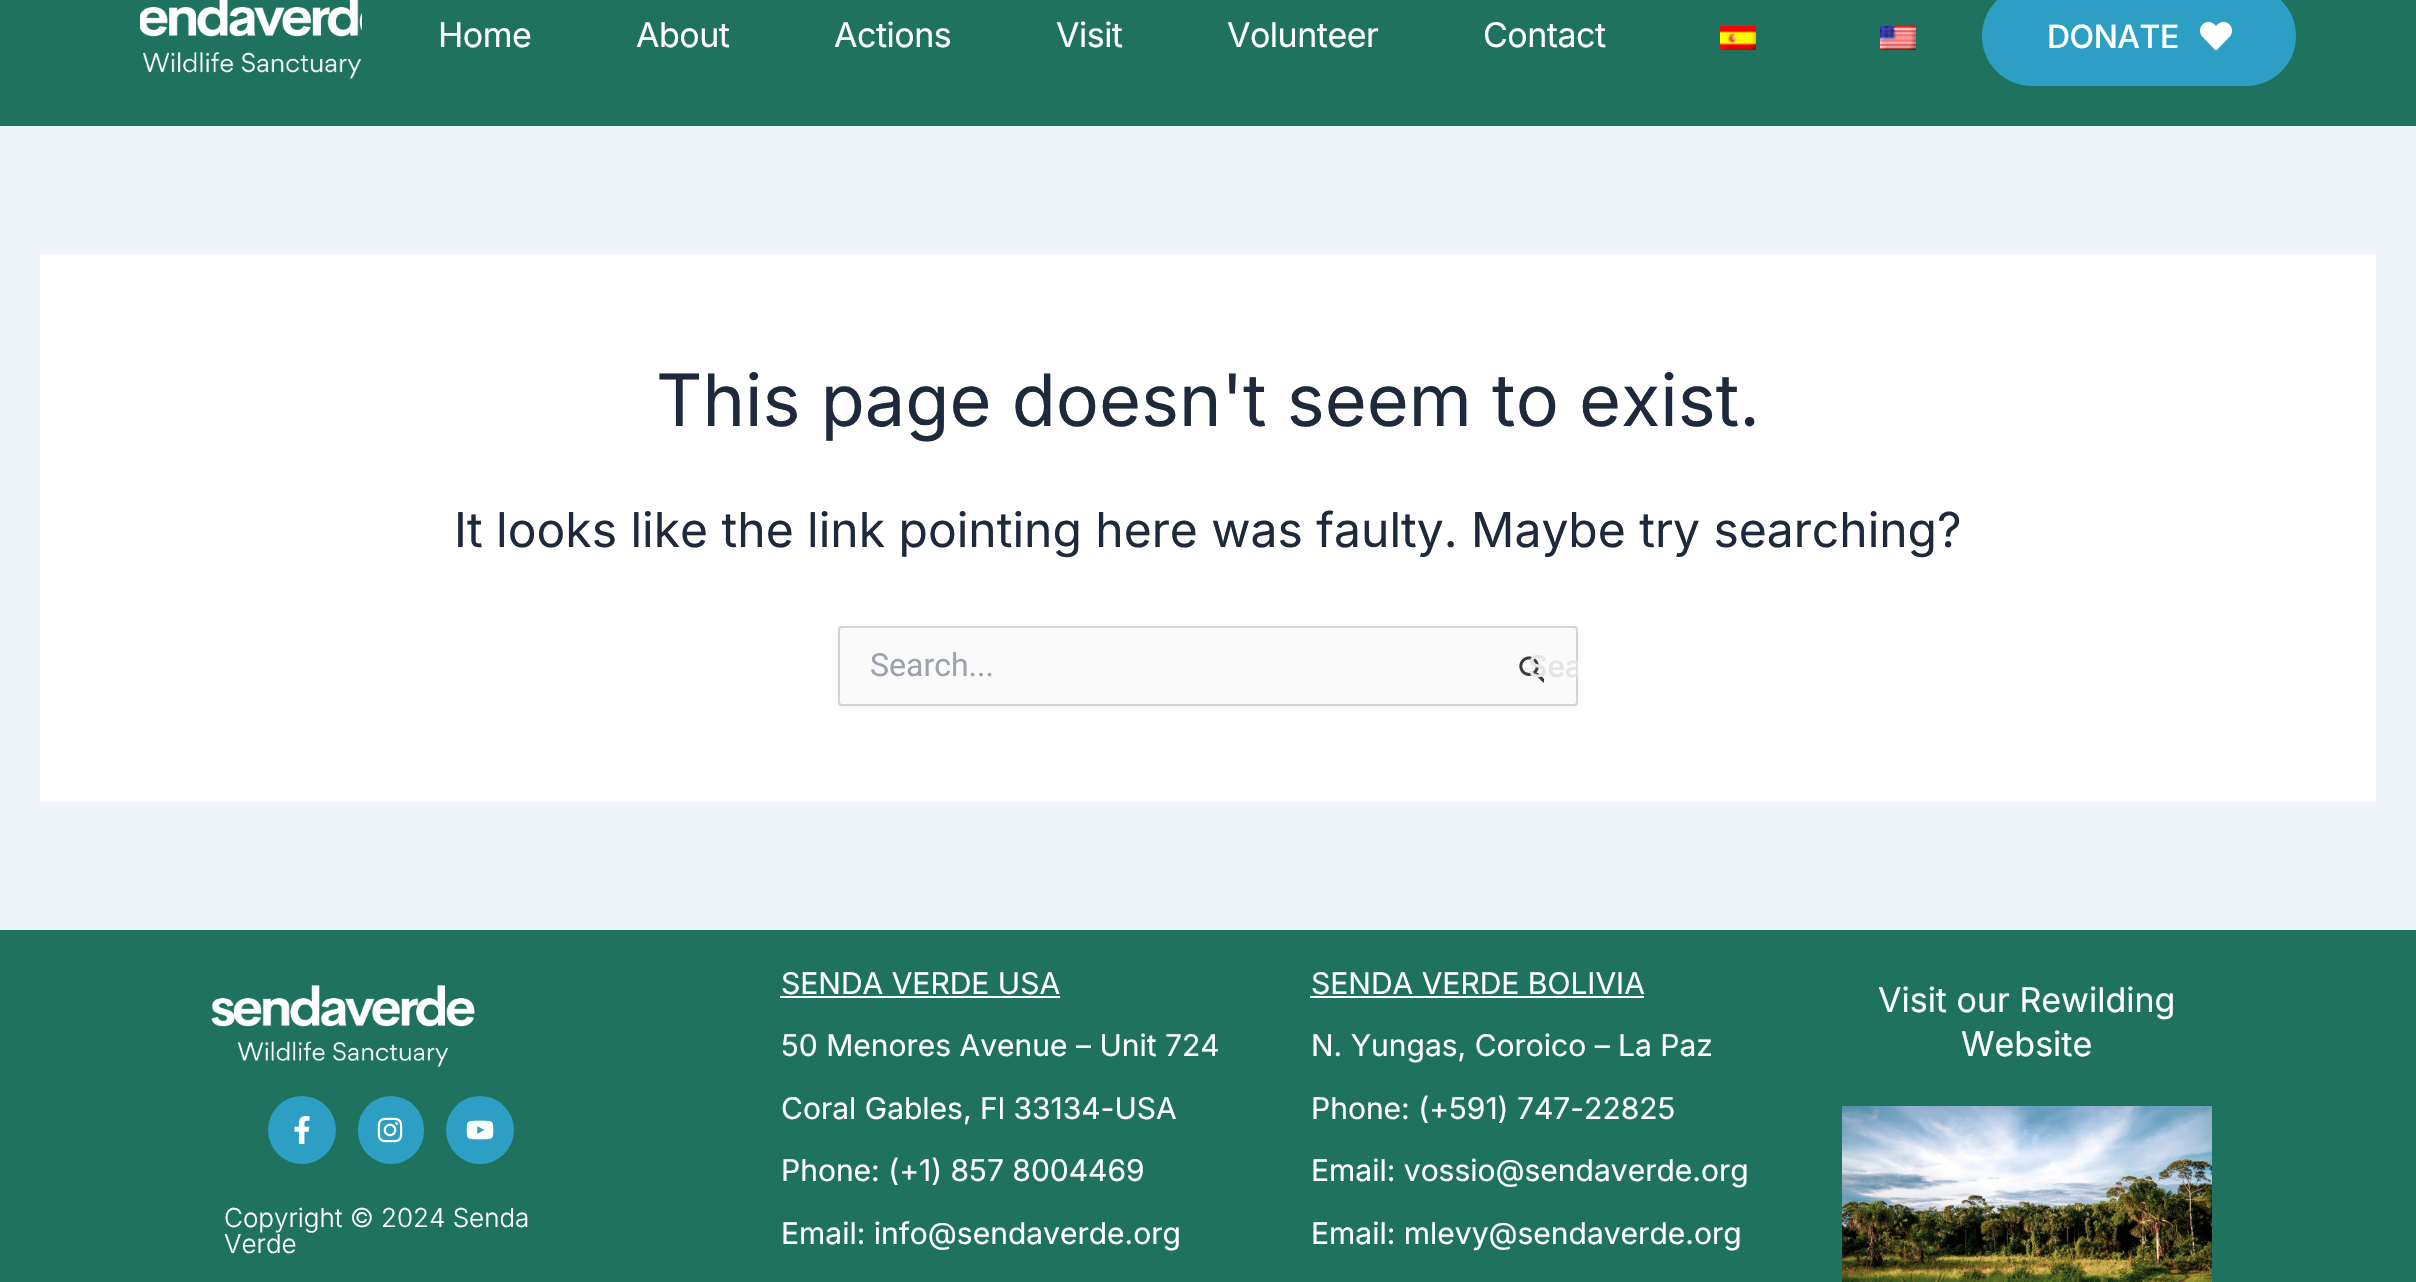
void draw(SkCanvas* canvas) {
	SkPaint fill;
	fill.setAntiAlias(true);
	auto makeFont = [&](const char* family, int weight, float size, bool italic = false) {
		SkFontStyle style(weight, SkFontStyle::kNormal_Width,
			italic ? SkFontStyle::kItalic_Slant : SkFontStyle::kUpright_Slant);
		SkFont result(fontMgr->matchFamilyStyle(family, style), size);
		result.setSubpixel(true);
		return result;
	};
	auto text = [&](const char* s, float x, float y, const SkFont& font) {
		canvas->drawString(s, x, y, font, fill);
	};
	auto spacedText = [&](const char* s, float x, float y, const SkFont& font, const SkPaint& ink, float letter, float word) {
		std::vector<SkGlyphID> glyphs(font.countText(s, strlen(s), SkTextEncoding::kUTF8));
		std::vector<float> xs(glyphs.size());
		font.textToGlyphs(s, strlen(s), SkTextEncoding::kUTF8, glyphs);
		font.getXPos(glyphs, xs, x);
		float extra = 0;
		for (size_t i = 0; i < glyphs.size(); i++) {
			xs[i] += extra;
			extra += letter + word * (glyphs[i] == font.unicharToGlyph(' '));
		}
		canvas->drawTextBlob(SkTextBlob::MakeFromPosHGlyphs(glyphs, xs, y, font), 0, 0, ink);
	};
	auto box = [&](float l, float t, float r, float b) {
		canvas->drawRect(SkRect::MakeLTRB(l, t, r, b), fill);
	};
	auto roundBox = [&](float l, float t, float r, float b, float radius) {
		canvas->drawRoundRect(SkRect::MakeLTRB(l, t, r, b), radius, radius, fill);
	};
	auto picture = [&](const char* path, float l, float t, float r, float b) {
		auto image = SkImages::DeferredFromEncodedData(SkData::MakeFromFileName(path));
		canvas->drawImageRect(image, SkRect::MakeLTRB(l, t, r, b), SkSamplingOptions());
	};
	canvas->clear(0xFFF0F5FA);
	fill.setColor(0xFF1E725E);
	box(0, 0, 2416, 126);
	picture("image0.png", 140, 0, 362, 79);
	picture("image1.png", 1720, 26, 1756, 50);
	picture("image2.png", 1880, 26, 1916, 50);
	fill.setColor(0xFF2D9FC5);
	canvas->drawRoundRect(SkRect::MakeLTRB(1984, -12, 2294, 84), 48, 48, fill);
	fill.setStyle(SkPaint::kStroke_Style);
	fill.setStrokeWidth(4);
	canvas->drawRoundRect(SkRect::MakeLTRB(1984, -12, 2294, 84), 48, 48, fill);
	picture("image3.png", 2200, 22, 2232, 50);
	fill.setStyle(SkPaint::kFill_Style);
	fill.setColor(0xFFFFFFFF);
	box(40, 254, 2376, 802);
	fill.setColor(0x0D000000);
	fill.setMaskFilter(SkMaskFilter::MakeBlur(kNormal_SkBlurStyle, 2));
	canvas->drawRoundRect(SkRect::MakeLTRB(838, 628, 1578, 708), 4, 4, fill);
	fill.setMaskFilter(nullptr);
	fill.setColor(0xFFFAFAFA);
	canvas->drawRoundRect(SkRect::MakeLTRB(839, 627, 1577, 705), 3, 3, fill);
	fill.setStyle(SkPaint::kStroke_Style);
	fill.setStrokeWidth(2);
	fill.setColor(0xFFD1D5DB);
	canvas->drawRoundRect(SkRect::MakeLTRB(839, 627, 1577, 705), 3, 3, fill);
	picture("image4.png", 1519, 656, 1544, 683);
	fill.setStyle(SkPaint::kFill_Style);
	fill.setColor(0xFF1E725E);
	box(0, 930, 2416, 1282);
	fill.setColor(0xFFFFFFFF);
	box(780, 996, 1060, 998);
	box(1310, 996, 1644, 998);
	picture("image5.png", 1842, 1106, 2212, 1282);
	picture("image6.png", 211, 985, 475, 1067);
	fill.setColor(0xFF2D9FC5);
	canvas->drawCircle(302, 1130, 34, fill);
	picture("image7.png", 294, 1116, 310, 1144);
	roundBox(358, 1096, 424, 1164, 33);
	picture("image8.png", 377, 1117, 403, 1143);
	canvas->drawCircle(480, 1130, 34, fill);
	picture("image9.png", 466, 1120, 494, 1140);
	auto font1 = makeFont("Inter", 400, 34);
	fill.setColor(0xFFFFFFFF);
	spacedText("Home", 438, 47, font1, fill, -0.5f, 0);
	spacedText("About", 636, 47, font1, fill, -0.5f, 0);
	spacedText("Actions", 834, 47, font1, fill, -0.5f, 0);
	spacedText("Visit", 1056, 47, font1, fill, -0.5f, 0);
	spacedText("Volunteer", 1227, 47, font1, fill, -0.5f, 0);
	spacedText("Contact", 1483, 47, font1, fill, -0.5f, 0);
	auto font2 = makeFont("Inter", 500, 32);
	spacedText("DONATE", 2047, 48, font2, fill, -0.5f, 0);
	auto font3 = makeFont("Inter", 400, 72);
	fill.setColor(0xFF1E293B);
	text("This page doesn't seem to exist.", 656, 426, font3);
	auto font4 = makeFont("Inter", 400, 48);
	text("It looks like the link pointing here was faulty. Maybe try searching?", 454, 547, font4);
	auto font5 = makeFont("Roboto", 400, 32);
	fill.setColor(0xFF9CA3AF);
	text("Search...", 870, 676, font5);
	canvas->save();
	canvas->clipPath(SkPathBuilder().moveTo(1492, 626).lineTo(1574, 626).cubicTo(1576, 626, 1578, 628, 1578, 630).lineTo(1578, 704).cubicTo(1578, 706, 1576, 708, 1574, 708).lineTo(1492, 708).cubicTo(1490, 708, 1488, 706, 1488, 704).lineTo(1488, 630).cubicTo(1488, 628, 1490, 626, 1492, 626).close().detach(), true);
	auto font6 = makeFont("Inter", 500, 30);
	fill.setColor(0xFFE4E4E4);
	text("Sea", 1528, 677, font6);
	canvas->restore();
	auto font7 = makeFont("Inter", 400, 30);
	fill.setColor(0xFFFFFFFF);
	text("SENDA VERDE USA", 781, 994, font7);
	text("50 Menores Avenue – Unit 724", 781, 1056, font7);
	text("Coral Gables, Fl 33134-USA", 781, 1119, font7);
	text("Phone: (+1) 857 8004469", 781, 1181, font7);
	text("Email: info@sendaverde.org", 781, 1244, font7);
	text("SENDA VERDE BOLIVIA", 1311, 994, font7);
	text("N. Yungas, Coroico – La Paz", 1311, 1056, font7);
	text("Phone: (+591) 747-22825", 1311, 1119, font7);
	text("Email: vossio@sendaverde.org", 1311, 1181, font7);
	text("Email: mlevy@sendaverde.org", 1311, 1244, font7);
	text("Visit our Rewilding", 1878, 1012, font1);
	text("Website", 1961, 1056, font1);
	auto font8 = makeFont("Inter", 300, 26);
	text("Copyright © 2024 Senda", 224, 1227, font8);
	text("Verde", 224, 1253, font8);
}
